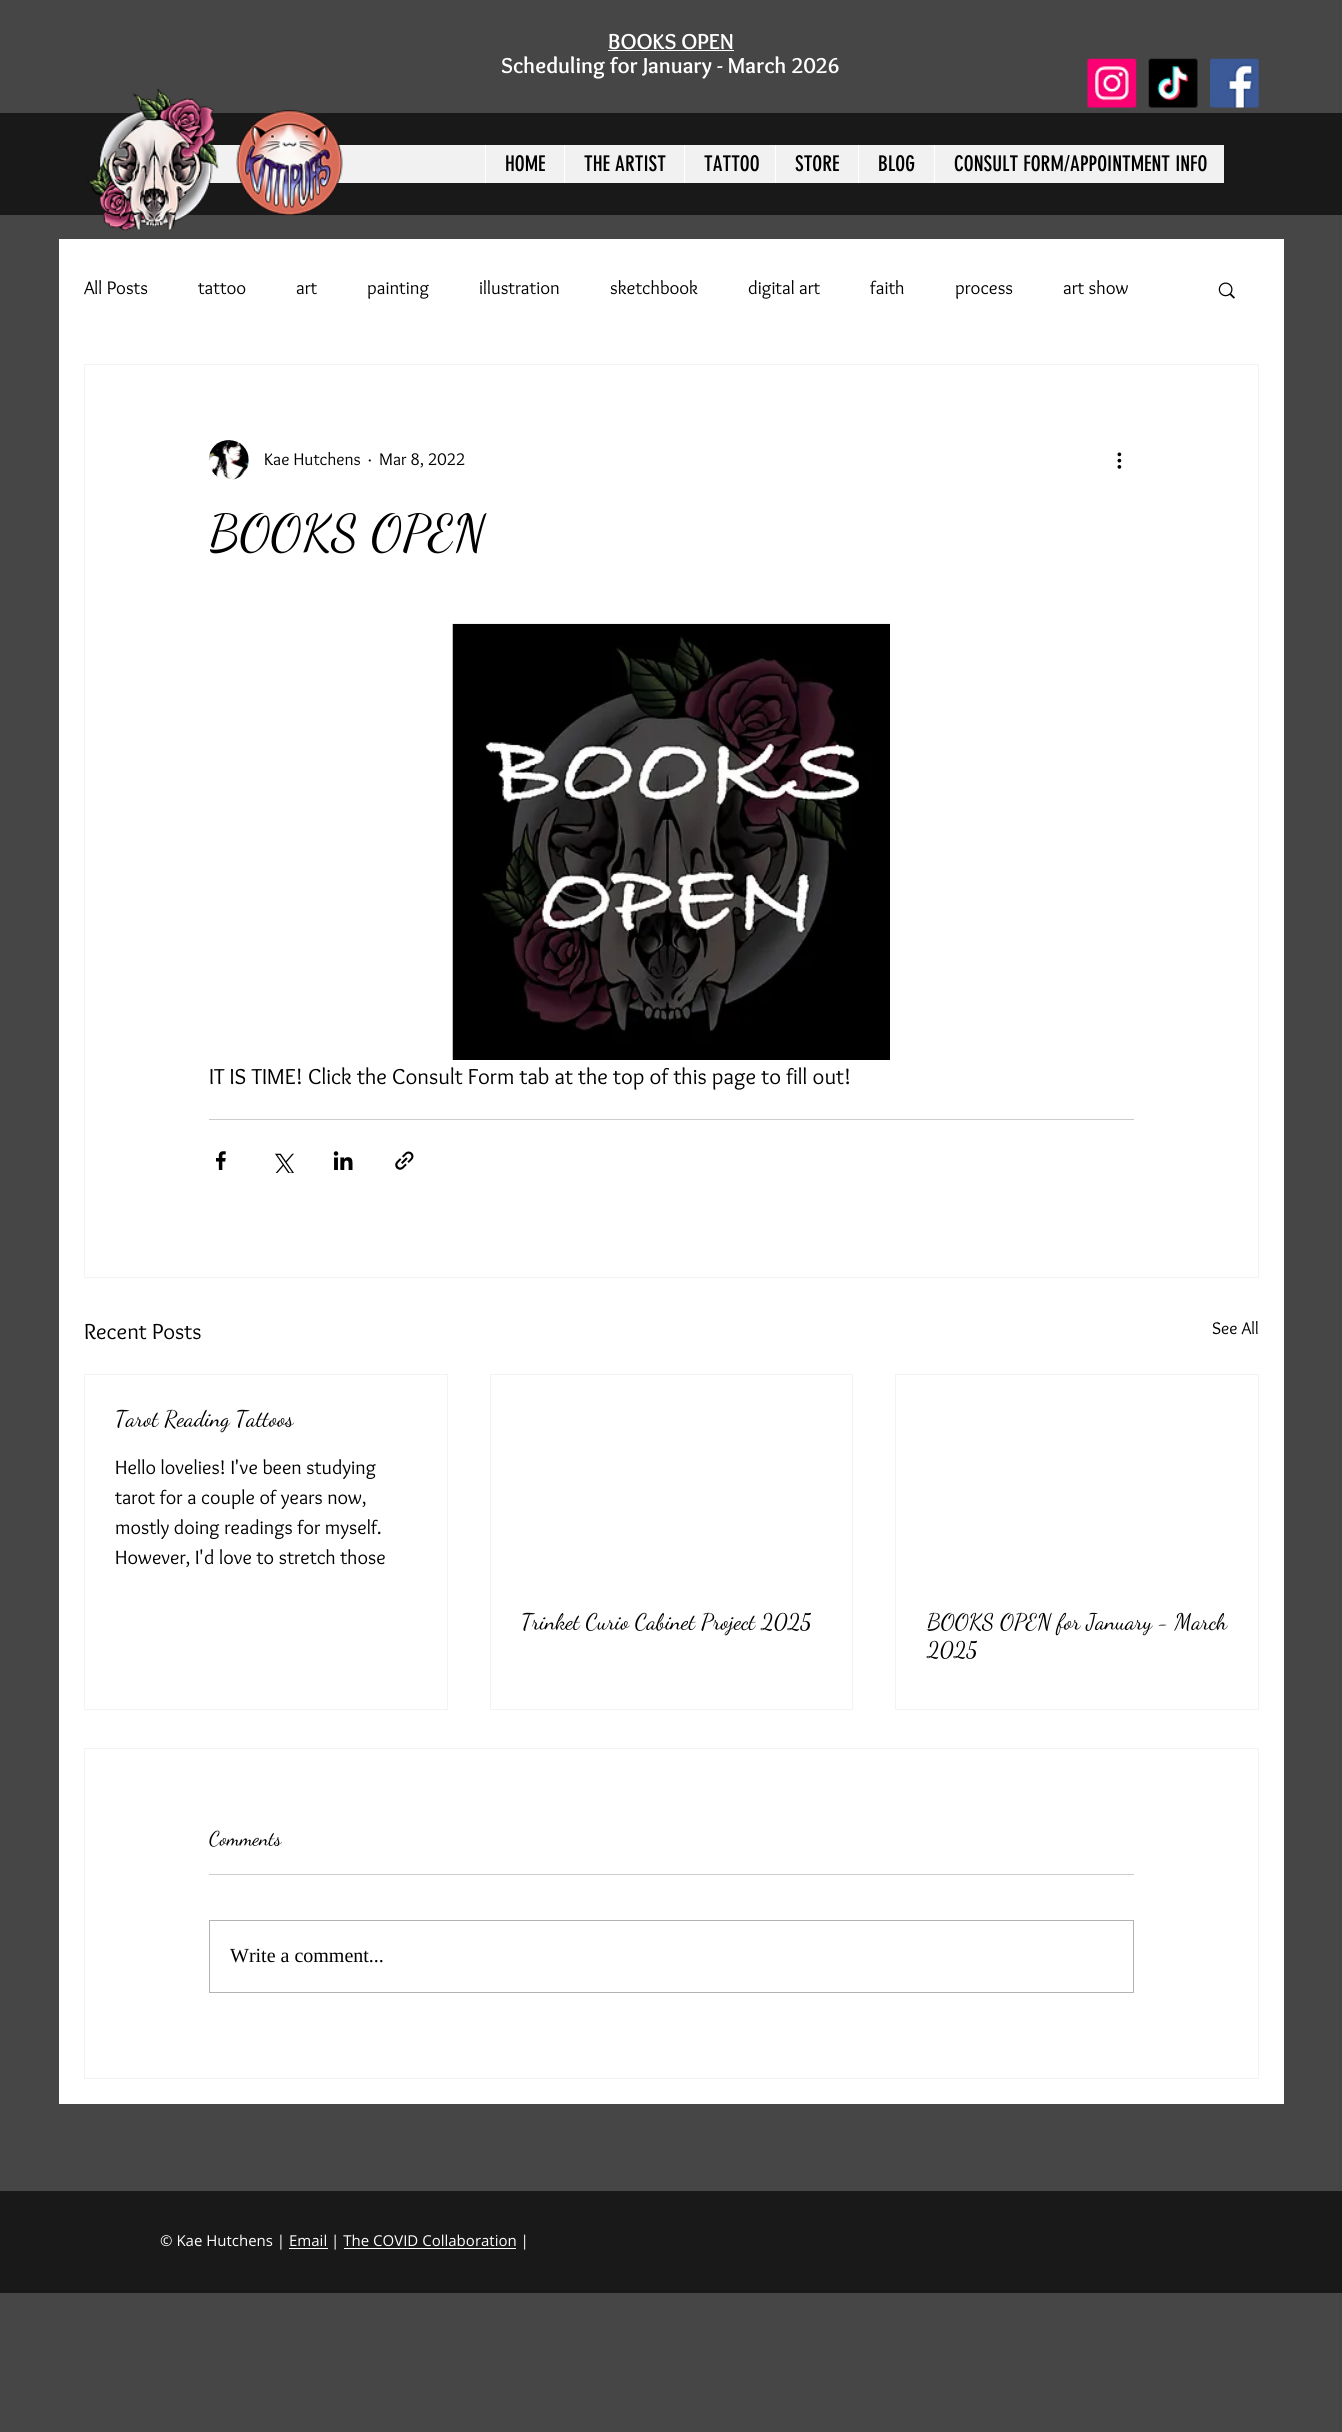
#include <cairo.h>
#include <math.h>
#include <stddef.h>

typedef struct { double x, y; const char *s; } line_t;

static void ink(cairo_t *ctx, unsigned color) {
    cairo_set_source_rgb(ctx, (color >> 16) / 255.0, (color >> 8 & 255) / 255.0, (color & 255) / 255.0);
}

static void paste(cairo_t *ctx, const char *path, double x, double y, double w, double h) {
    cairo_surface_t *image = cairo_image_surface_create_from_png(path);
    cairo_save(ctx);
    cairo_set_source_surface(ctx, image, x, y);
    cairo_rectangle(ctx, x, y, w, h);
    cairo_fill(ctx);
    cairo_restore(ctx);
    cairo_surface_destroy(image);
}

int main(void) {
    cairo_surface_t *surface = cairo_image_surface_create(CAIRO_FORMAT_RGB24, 1342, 2432);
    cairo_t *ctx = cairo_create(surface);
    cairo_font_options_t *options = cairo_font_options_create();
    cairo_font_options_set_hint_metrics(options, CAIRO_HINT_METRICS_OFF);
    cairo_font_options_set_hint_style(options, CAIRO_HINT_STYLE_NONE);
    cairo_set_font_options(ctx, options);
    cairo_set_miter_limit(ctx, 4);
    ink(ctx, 0x464646);
    cairo_paint(ctx);
    cairo_select_font_face(ctx, "Overlock", CAIRO_FONT_SLANT_NORMAL, CAIRO_FONT_WEIGHT_BOLD);
    cairo_set_font_size(ctx, 22.5);
    ink(ctx, 0xFFFFFF);
    cairo_move_to(ctx, 608, 49);
    cairo_show_text(ctx, "BOOKS OPEN");
    cairo_rectangle(ctx, 608, 50, 126, 1);
    cairo_fill(ctx);
    cairo_move_to(ctx, 501, 73);
    cairo_show_text(ctx, "Scheduling for January - March 2026");
    paste(ctx, "media/1.png", 1087, 58, 50, 50);
    paste(ctx, "media/2.png", 1148, 58, 50, 50);
    paste(ctx, "media/3.png", 1210, 58, 49, 50);
    ink(ctx, 0x191919);
    cairo_rectangle(ctx, 0, 113, 1342, 102);
    cairo_fill(ctx);
    ink(ctx, 0xF1F1F1);
    cairo_rectangle(ctx, 119, 145, 1105, 38);
    cairo_fill(ctx);
    paste(ctx, "media/4.png", 87, 88, 132, 143);
    paste(ctx, "media/5.png", 236, 110, 107, 106);
    ink(ctx, 0xFFFFFF);
    cairo_rectangle(ctx, 485, 145, 1, 38);
    cairo_fill(ctx);
    cairo_select_font_face(ctx, "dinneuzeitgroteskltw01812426", CAIRO_FONT_SLANT_NORMAL, CAIRO_FONT_WEIGHT_NORMAL);
    cairo_set_font_size(ctx, 21.25);
    ink(ctx, 0x000000);
    cairo_move_to(ctx, 505, 171);
    cairo_show_text(ctx, "HOME");
    ink(ctx, 0xFFFFFF);
    cairo_rectangle(ctx, 564, 145, 1, 38);
    cairo_fill(ctx);
    ink(ctx, 0x000000);
    cairo_move_to(ctx, 584, 171);
    cairo_show_text(ctx, "THE ARTIST");
    ink(ctx, 0xFFFFFF);
    cairo_rectangle(ctx, 684, 145, 1, 38);
    cairo_fill(ctx);
    ink(ctx, 0x000000);
    cairo_move_to(ctx, 704, 171);
    cairo_show_text(ctx, "TATTOO");
    ink(ctx, 0xFFFFFF);
    cairo_rectangle(ctx, 775, 145, 1, 38);
    cairo_fill(ctx);
    ink(ctx, 0x000000);
    cairo_move_to(ctx, 795, 171);
    cairo_show_text(ctx, "STORE");
    ink(ctx, 0xFFFFFF);
    cairo_rectangle(ctx, 858, 145, 1, 38);
    cairo_fill(ctx);
    ink(ctx, 0x000000);
    cairo_move_to(ctx, 878, 171);
    cairo_show_text(ctx, "BLOG");
    ink(ctx, 0xFFFFFF);
    cairo_rectangle(ctx, 934, 145, 1, 38);
    cairo_fill(ctx);
    ink(ctx, 0x000000);
    cairo_move_to(ctx, 954, 171);
    cairo_show_text(ctx, "CONSULT FORM/APPOINTMENT INFO");
    ink(ctx, 0xFFFFFF);
    cairo_rectangle(ctx, 59, 239, 1225, 1865);
    cairo_fill(ctx);
    cairo_select_font_face(ctx, "Overlock", CAIRO_FONT_SLANT_NORMAL, CAIRO_FONT_WEIGHT_NORMAL);
    cairo_set_font_size(ctx, 18.75);
    ink(ctx, 0x000000);
    {
        static const line_t items[] = {
            {84, 294, "All Posts"},
            {198, 294, "tattoo"},
            {296, 294, "art"},
            {367, 294, "painting"},
            {479, 294, "illustration"},
            {610, 294, "sketchbook"},
            {748, 294, "digital art"},
            {870, 294, "faith"},
            {955, 294, "process"},
            {1063, 294, "art show"},
        };
        for (size_t i = 0; i < sizeof items / sizeof *items; i++) {
            cairo_move_to(ctx, items[i].x, items[i].y);
            cairo_show_text(ctx, items[i].s);
        }
    }
    paste(ctx, "media/6.png", 1218, 282, 17, 17);
    cairo_rectangle(ctx, 84.5, 364.5, 1174, 913);
    ink(ctx, 0xF3F3F3);
    cairo_set_line_width(ctx, 1);
    cairo_stroke(ctx);
    paste(ctx, "media/7.png", 208, 440, 41, 40);
    cairo_set_font_size(ctx, 17.5);
    ink(ctx, 0x000000);
    {
        static const line_t items[] = {
            {264, 465, "Kae Hutchens"},
            {368, 465, "·"},
            {379, 465, "Mar 8, 2022"},
        };
        for (size_t i = 0; i < sizeof items / sizeof *items; i++) {
            cairo_move_to(ctx, items[i].x, items[i].y);
            cairo_show_text(ctx, items[i].s);
        }
    }
    paste(ctx, "media/8.png", 1117, 452, 5, 17);
    cairo_select_font_face(ctx, "Dancing Script", CAIRO_FONT_SLANT_NORMAL, CAIRO_FONT_WEIGHT_NORMAL);
    cairo_set_font_size(ctx, 50);
    cairo_move_to(ctx, 209, 549);
    cairo_show_text(ctx, "BOOKS OPEN");
    paste(ctx, "media/9.png", 452, 623, 438, 437);
    cairo_select_font_face(ctx, "Overlock", CAIRO_FONT_SLANT_NORMAL, CAIRO_FONT_WEIGHT_NORMAL);
    cairo_set_font_size(ctx, 22.5);
    cairo_move_to(ctx, 209, 1084);
    cairo_show_text(ctx, "IT IS TIME! Click the Consult Form tab at the top of this page to fill out!");
    ink(ctx, 0xCCCCCC);
    cairo_rectangle(ctx, 209, 1119, 925, 1);
    cairo_fill(ctx);
    paste(ctx, "media/10.png", 216, 1151, 10, 19);
    paste(ctx, "media/11.png", 275, 1153, 19, 20);
    paste(ctx, "media/12.png", 333, 1151, 20, 19);
    paste(ctx, "media/13.png", 395, 1151, 19, 19);
    ink(ctx, 0x000000);
    cairo_move_to(ctx, 84, 1339);
    cairo_show_text(ctx, "Recent Posts");
    cairo_set_font_size(ctx, 17.5);
    cairo_move_to(ctx, 1212, 1334);
    cairo_show_text(ctx, "See All");
    cairo_rectangle(ctx, 84.5, 1374.5, 363, 335);
    ink(ctx, 0xF3F3F3);
    cairo_stroke(ctx);
    cairo_select_font_face(ctx, "Dancing Script", CAIRO_FONT_SLANT_NORMAL, CAIRO_FONT_WEIGHT_NORMAL);
    cairo_set_font_size(ctx, 22.5);
    ink(ctx, 0x000000);
    cairo_move_to(ctx, 115, 1426);
    cairo_show_text(ctx, "Tarot Reading Tattoos");
    cairo_select_font_face(ctx, "Overlock", CAIRO_FONT_SLANT_NORMAL, CAIRO_FONT_WEIGHT_NORMAL);
    cairo_set_font_size(ctx, 20);
    {
        static const line_t items[] = {
            {115, 1474, "Hello lovelies! I've been studying"},
            {115, 1504, "tarot for a couple of years now,"},
            {115, 1534, "mostly doing readings for myself."},
            {115, 1564, "However, I'd love to stretch those"},
        };
        for (size_t i = 0; i < sizeof items / sizeof *items; i++) {
            cairo_move_to(ctx, items[i].x, items[i].y);
            cairo_show_text(ctx, items[i].s);
        }
    }
    cairo_rectangle(ctx, 490.5, 1374.5, 362, 335);
    ink(ctx, 0xF3F3F3);
    cairo_stroke(ctx);
    cairo_select_font_face(ctx, "Dancing Script", CAIRO_FONT_SLANT_NORMAL, CAIRO_FONT_WEIGHT_NORMAL);
    cairo_set_font_size(ctx, 22.5);
    ink(ctx, 0x000000);
    cairo_move_to(ctx, 521, 1629);
    cairo_show_text(ctx, "Trinket Curio Cabinet Project 2025");
    cairo_rectangle(ctx, 895.5, 1374.5, 363, 335);
    ink(ctx, 0xF3F3F3);
    cairo_stroke(ctx);
    ink(ctx, 0x000000);
    cairo_move_to(ctx, 927, 1629);
    cairo_show_text(ctx, "BOOKS OPEN for January - March");
    cairo_move_to(ctx, 927, 1657);
    cairo_show_text(ctx, "2025");
    cairo_rectangle(ctx, 84.5, 1748.5, 1174, 330);
    ink(ctx, 0xF3F3F3);
    cairo_stroke(ctx);
    cairo_set_font_size(ctx, 20);
    ink(ctx, 0x000000);
    cairo_move_to(ctx, 209, 1845);
    cairo_show_text(ctx, "Comments");
    ink(ctx, 0xCCCCCC);
    cairo_rectangle(ctx, 209, 1874, 925, 1);
    cairo_fill(ctx);
    cairo_rectangle(ctx, 209.5, 1920.5, 924, 72);
    ink(ctx, 0xB3B3B3);
    cairo_stroke(ctx);
    cairo_select_font_face(ctx, "Liberation Serif", CAIRO_FONT_SLANT_NORMAL, CAIRO_FONT_WEIGHT_NORMAL);
    ink(ctx, 0x000000);
    cairo_move_to(ctx, 230, 1962);
    cairo_show_text(ctx, "Write a comment...");
    ink(ctx, 0x191919);
    cairo_rectangle(ctx, 0, 2191, 1342, 102);
    cairo_fill(ctx);
    cairo_select_font_face(ctx, "Open Sans", CAIRO_FONT_SLANT_NORMAL, CAIRO_FONT_WEIGHT_NORMAL);
    cairo_set_font_size(ctx, 15);
    ink(ctx, 0xFFFFFF);
    cairo_move_to(ctx, 160, 2246);
    cairo_show_text(ctx, "© Kae Hutchens | Email | The COVID Collaboration |");
    cairo_rectangle(ctx, 289, 2248, 39, 1);
    cairo_fill(ctx);
    cairo_rectangle(ctx, 344, 2248, 172, 1);
    cairo_fill(ctx);
    cairo_surface_write_to_png(surface, "image.png");
    cairo_font_options_destroy(options);
    cairo_destroy(ctx);
    cairo_surface_destroy(surface);
    return 0;
}
